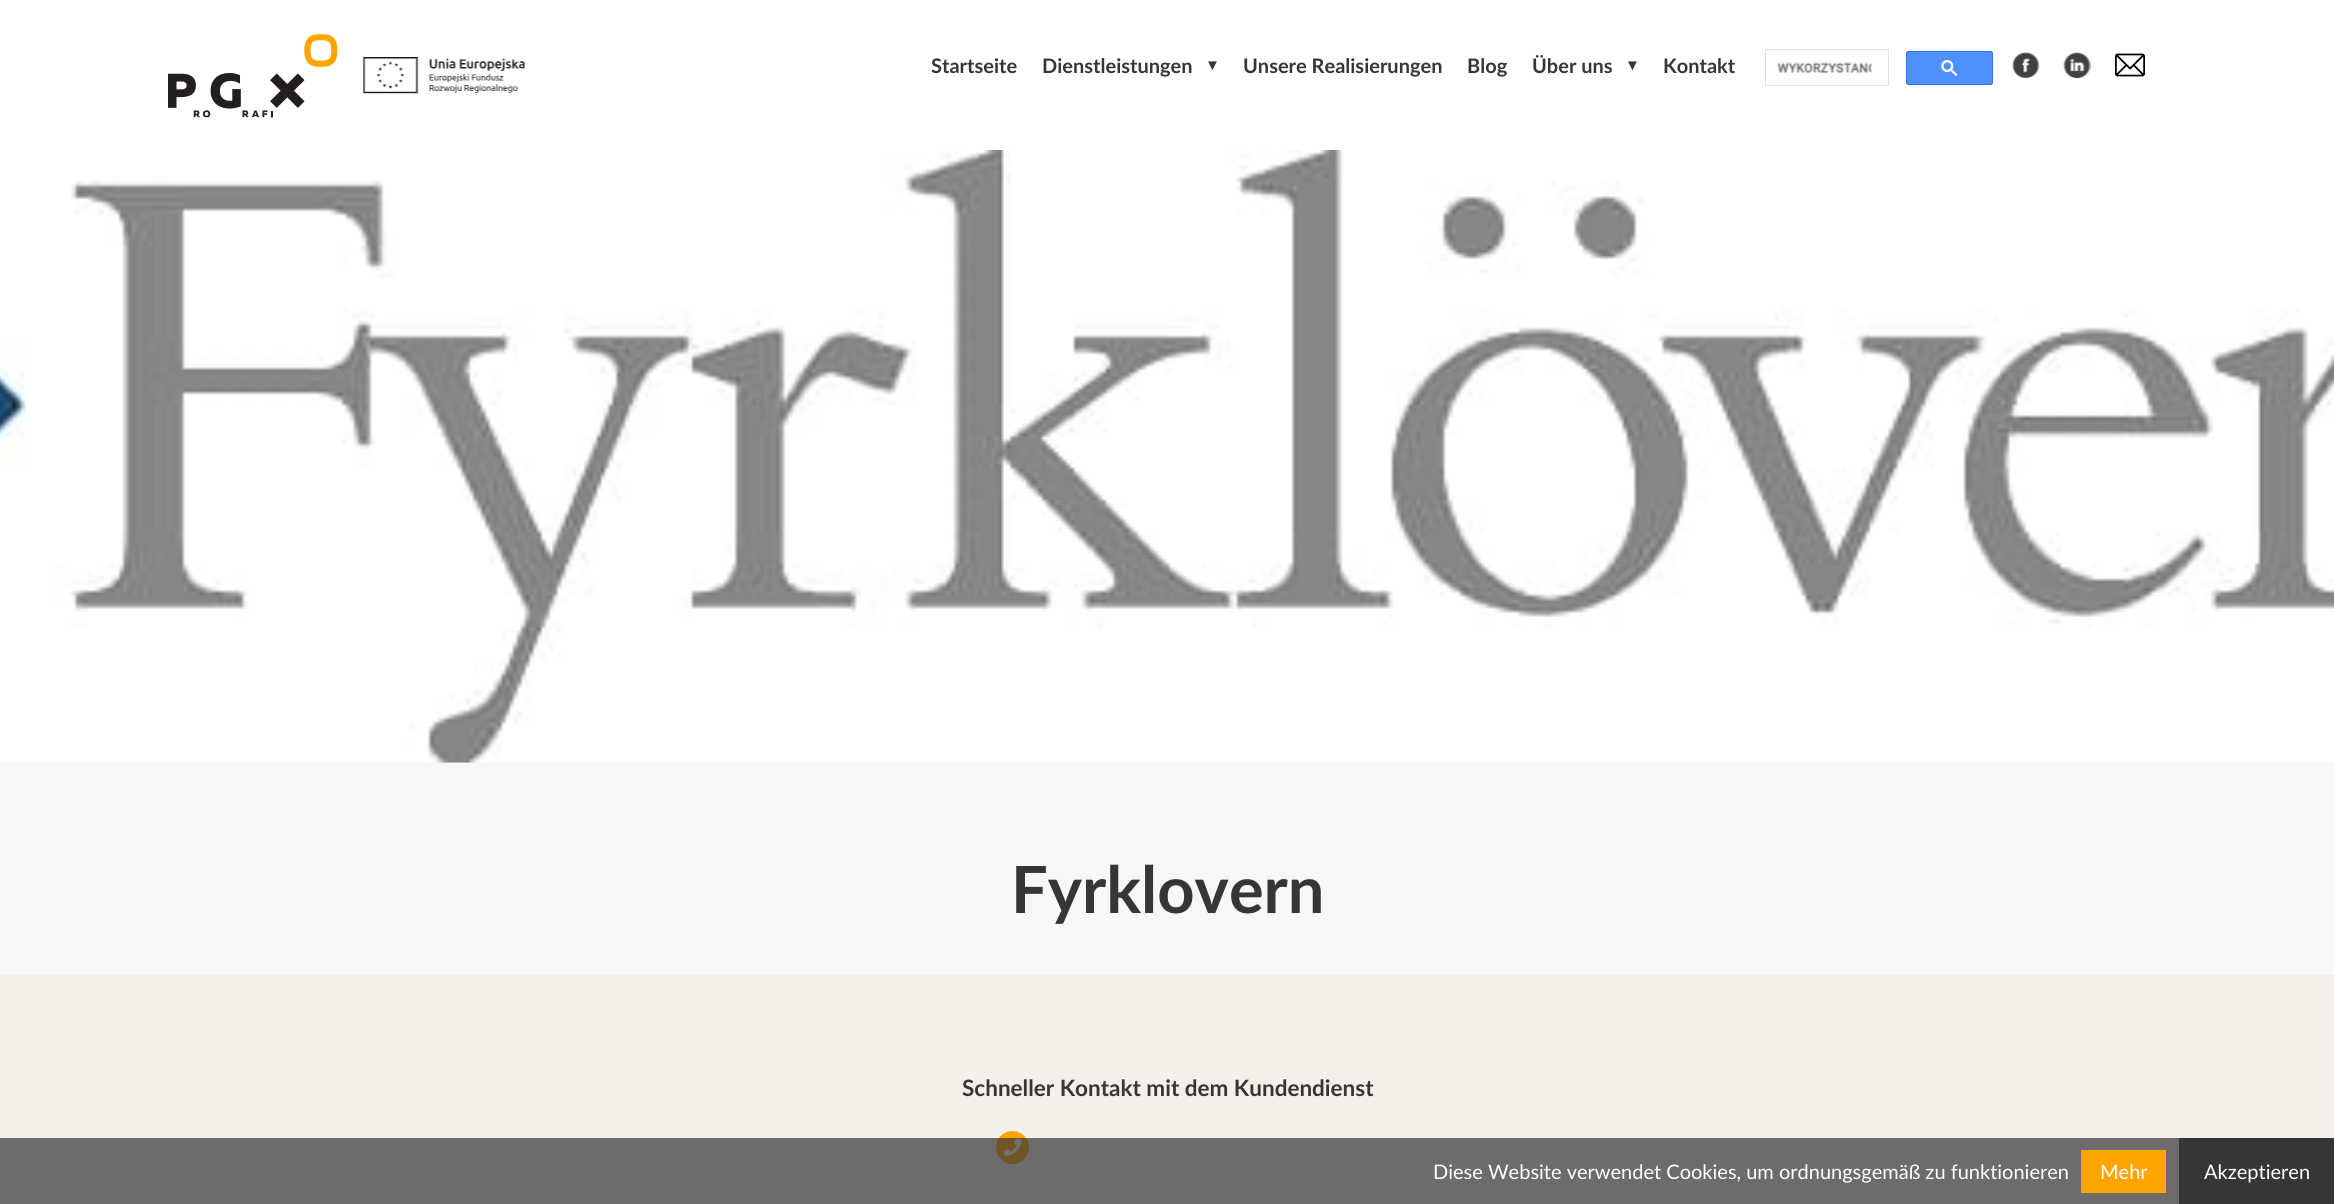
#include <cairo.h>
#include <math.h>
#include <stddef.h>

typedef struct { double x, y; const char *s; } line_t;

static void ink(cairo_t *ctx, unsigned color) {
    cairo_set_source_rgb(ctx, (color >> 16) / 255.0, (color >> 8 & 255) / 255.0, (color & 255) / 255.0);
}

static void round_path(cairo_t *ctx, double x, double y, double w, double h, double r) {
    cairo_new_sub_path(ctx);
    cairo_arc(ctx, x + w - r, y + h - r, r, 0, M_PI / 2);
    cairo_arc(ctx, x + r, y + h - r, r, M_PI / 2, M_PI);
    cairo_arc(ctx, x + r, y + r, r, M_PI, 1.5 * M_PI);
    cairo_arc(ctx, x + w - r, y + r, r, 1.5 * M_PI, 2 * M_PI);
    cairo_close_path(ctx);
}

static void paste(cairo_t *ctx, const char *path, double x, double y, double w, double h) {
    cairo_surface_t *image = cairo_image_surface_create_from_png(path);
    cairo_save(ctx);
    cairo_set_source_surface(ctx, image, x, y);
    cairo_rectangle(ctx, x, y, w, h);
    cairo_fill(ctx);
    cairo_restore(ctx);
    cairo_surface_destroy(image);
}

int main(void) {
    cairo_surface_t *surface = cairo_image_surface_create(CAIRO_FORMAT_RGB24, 2334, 1204);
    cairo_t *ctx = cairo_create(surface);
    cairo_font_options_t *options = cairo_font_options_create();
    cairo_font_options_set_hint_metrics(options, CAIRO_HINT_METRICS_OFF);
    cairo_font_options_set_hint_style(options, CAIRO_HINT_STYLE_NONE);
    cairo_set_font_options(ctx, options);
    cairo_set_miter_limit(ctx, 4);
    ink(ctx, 0xF9F7F5);
    cairo_paint(ctx);
    ink(ctx, 0xFFFFFF);
    cairo_rectangle(ctx, 0, 0, 2334, 150);
    cairo_fill(ctx);
    paste(ctx, "media/1.png", 168, 34, 170, 84);
    paste(ctx, "media/2.png", 363, 57, 162, 37);
    cairo_select_font_face(ctx, "Lato", CAIRO_FONT_SLANT_NORMAL, CAIRO_FONT_WEIGHT_BOLD);
    cairo_set_font_size(ctx, 20);
    ink(ctx, 0x363636);
    cairo_move_to(ctx, 931, 73);
    cairo_show_text(ctx, "Startseite");
    cairo_move_to(ctx, 1042, 73);
    cairo_show_text(ctx, "Dienstleistungen");
    cairo_select_font_face(ctx, "Liberation Sans", CAIRO_FONT_SLANT_NORMAL, CAIRO_FONT_WEIGHT_NORMAL);
    cairo_set_font_size(ctx, 15);
    cairo_move_to(ctx, 1205, 70);
    cairo_show_text(ctx, "▼");
    cairo_select_font_face(ctx, "Lato", CAIRO_FONT_SLANT_NORMAL, CAIRO_FONT_WEIGHT_BOLD);
    cairo_set_font_size(ctx, 20);
    {
        static const line_t items[] = {
            {1243, 73, "Unsere Realisierungen"},
            {1467, 73, "Blog"},
            {1532, 73, "Über uns"},
        };
        for (size_t i = 0; i < sizeof items / sizeof *items; i++) {
            cairo_move_to(ctx, items[i].x, items[i].y);
            cairo_show_text(ctx, items[i].s);
        }
    }
    cairo_select_font_face(ctx, "Liberation Sans", CAIRO_FONT_SLANT_NORMAL, CAIRO_FONT_WEIGHT_NORMAL);
    cairo_set_font_size(ctx, 15);
    cairo_move_to(ctx, 1625, 70);
    cairo_show_text(ctx, "▼");
    cairo_select_font_face(ctx, "Lato", CAIRO_FONT_SLANT_NORMAL, CAIRO_FONT_WEIGHT_BOLD);
    cairo_set_font_size(ctx, 20);
    cairo_move_to(ctx, 1663, 73);
    cairo_show_text(ctx, "Kontakt");
    cairo_rectangle(ctx, 1765.5, 49.5, 123, 36);
    ink(ctx, 0xDFE1E5);
    cairo_set_line_width(ctx, 1);
    cairo_stroke(ctx);
    paste(ctx, "media/3.png", 1777, 62, 95, 11);
    ink(ctx, 0x4D90FE);
    round_path(ctx, 1906.5, 51.5, 86, 33, 2);
    cairo_fill_preserve(ctx);
    ink(ctx, 0x3079ED);
    cairo_stroke(ctx);
    paste(ctx, "media/4.png", 1941, 60, 17, 16);
    paste(ctx, "media/5.png", 2012, 52, 28, 27);
    paste(ctx, "media/6.png", 2063, 52, 28, 27);
    paste(ctx, "media/7.png", 2115, 53, 30, 24);
    ink(ctx, 0xF5EFEA);
    cairo_rectangle(ctx, 0, 762, 2334, 1);
    cairo_fill(ctx);
    paste(ctx, "media/8.png", 0, 150, 2334, 613);
    cairo_set_font_size(ctx, 65);
    ink(ctx, 0x363636);
    cairo_move_to(ctx, 1011, 913);
    cairo_show_text(ctx, "Fyrklovern");
    ink(ctx, 0xF5EFEA);
    cairo_rectangle(ctx, 0, 975, 2334, 229);
    cairo_fill(ctx);
    cairo_set_font_size(ctx, 22.5);
    ink(ctx, 0x363636);
    cairo_move_to(ctx, 962, 1096);
    cairo_show_text(ctx, "Schneller Kontakt mit dem Kundendienst");
    ink(ctx, 0xFFA500);
    cairo_new_path(ctx);
    cairo_arc(ctx, 1012.5, 1147.5, 16.5, 0, 2 * M_PI);
    cairo_fill(ctx);
    paste(ctx, "media/9.png", 1003, 1138, 19, 18);
    cairo_set_source_rgba(ctx, 0.212, 0.212, 0.212, 0.7);
    cairo_rectangle(ctx, 0, 1138, 2179, 66);
    cairo_fill(ctx);
    cairo_select_font_face(ctx, "Lato", CAIRO_FONT_SLANT_NORMAL, CAIRO_FONT_WEIGHT_NORMAL);
    cairo_set_font_size(ctx, 20);
    ink(ctx, 0xFFFFFF);
    cairo_move_to(ctx, 1433, 1179);
    cairo_show_text(ctx, "Diese Website verwendet Cookies, um ordnungsgemäß zu funktionieren");
    ink(ctx, 0xFFA500);
    cairo_rectangle(ctx, 2081, 1150, 85, 43);
    cairo_fill(ctx);
    ink(ctx, 0xFFFFFF);
    cairo_move_to(ctx, 2100, 1179);
    cairo_show_text(ctx, "Mehr");
    ink(ctx, 0x363636);
    cairo_rectangle(ctx, 2179, 1138, 155, 66);
    cairo_fill(ctx);
    ink(ctx, 0xFFFFFF);
    cairo_move_to(ctx, 2204, 1179);
    cairo_show_text(ctx, "Akzeptieren");
    cairo_surface_write_to_png(surface, "image.png");
    cairo_font_options_destroy(options);
    cairo_destroy(ctx);
    cairo_surface_destroy(surface);
    return 0;
}
